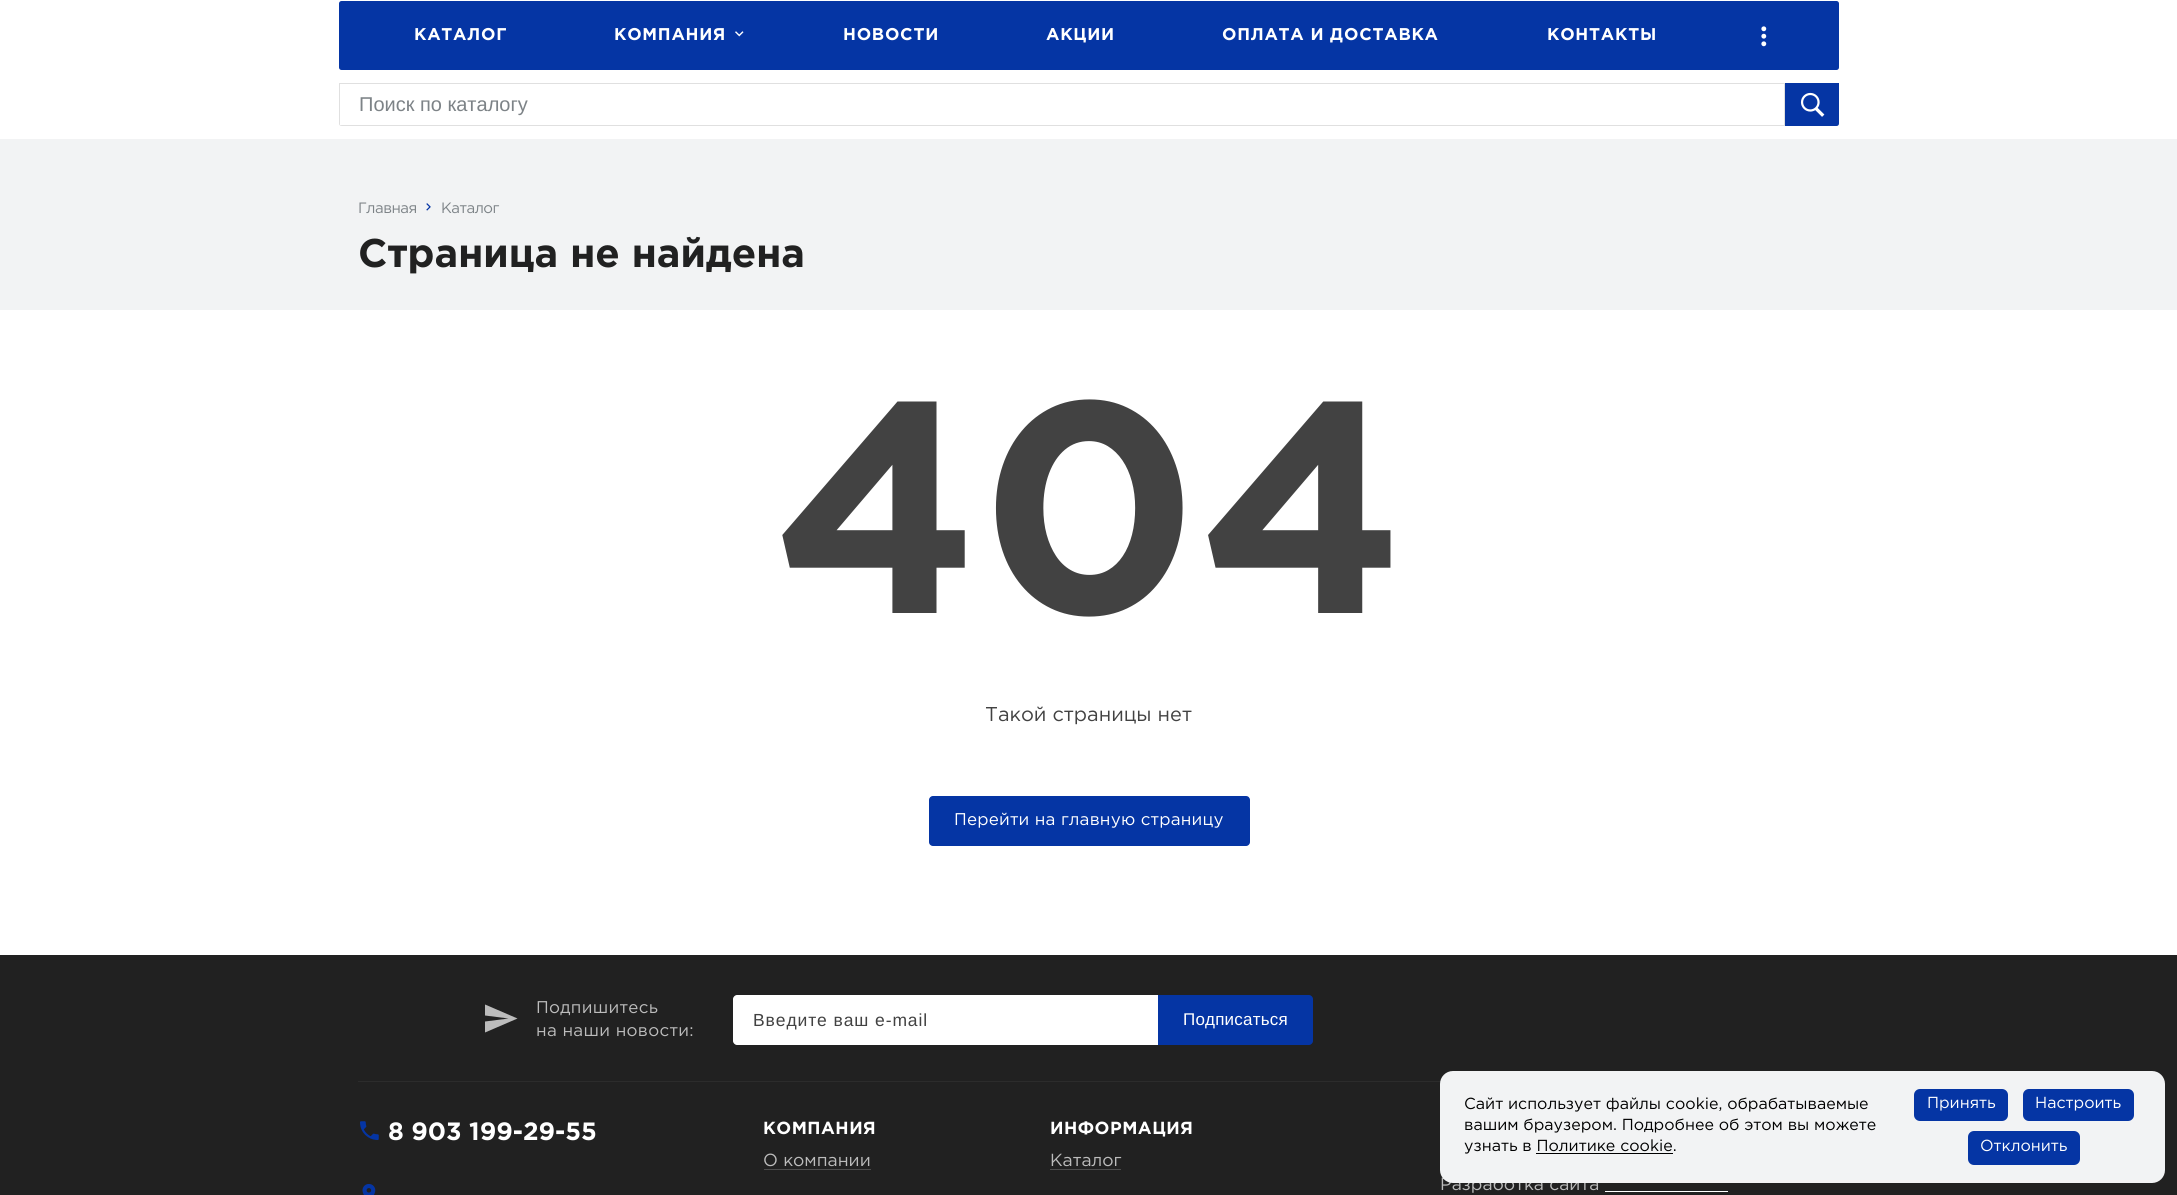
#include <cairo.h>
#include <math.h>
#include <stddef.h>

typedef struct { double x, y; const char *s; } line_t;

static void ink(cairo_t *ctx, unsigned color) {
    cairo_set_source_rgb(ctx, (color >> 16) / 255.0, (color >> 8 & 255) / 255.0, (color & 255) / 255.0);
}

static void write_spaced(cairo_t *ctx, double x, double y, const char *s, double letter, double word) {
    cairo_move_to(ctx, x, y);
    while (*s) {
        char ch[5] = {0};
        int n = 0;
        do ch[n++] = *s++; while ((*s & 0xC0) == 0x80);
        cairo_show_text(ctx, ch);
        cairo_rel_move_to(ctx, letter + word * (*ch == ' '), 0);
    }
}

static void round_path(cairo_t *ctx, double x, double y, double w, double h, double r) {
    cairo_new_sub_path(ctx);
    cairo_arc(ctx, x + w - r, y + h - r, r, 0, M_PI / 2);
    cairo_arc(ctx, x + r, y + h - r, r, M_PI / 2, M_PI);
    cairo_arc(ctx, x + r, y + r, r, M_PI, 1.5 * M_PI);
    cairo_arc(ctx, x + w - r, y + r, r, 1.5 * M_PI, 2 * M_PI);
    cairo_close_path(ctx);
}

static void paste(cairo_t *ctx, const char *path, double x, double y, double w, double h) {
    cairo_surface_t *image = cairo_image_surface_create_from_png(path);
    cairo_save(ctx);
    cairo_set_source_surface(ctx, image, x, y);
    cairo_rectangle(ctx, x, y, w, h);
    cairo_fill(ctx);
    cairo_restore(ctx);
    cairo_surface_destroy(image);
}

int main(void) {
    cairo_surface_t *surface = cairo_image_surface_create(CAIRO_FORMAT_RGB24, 2177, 1195);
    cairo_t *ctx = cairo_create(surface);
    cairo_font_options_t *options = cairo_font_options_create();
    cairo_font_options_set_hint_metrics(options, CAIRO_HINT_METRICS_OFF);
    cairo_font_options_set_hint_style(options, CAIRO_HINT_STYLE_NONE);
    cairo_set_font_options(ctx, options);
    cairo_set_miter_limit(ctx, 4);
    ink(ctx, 0xFFFFFF);
    cairo_paint(ctx);
    ink(ctx, 0x0535A4);
    round_path(ctx, 339, 1, 1500, 69, 2.5);
    cairo_fill(ctx);
    cairo_select_font_face(ctx, "Gotham", CAIRO_FONT_SLANT_NORMAL, CAIRO_FONT_WEIGHT_BOLD);
    cairo_set_font_size(ctx, 17);
    ink(ctx, 0xFFFFFF);
    write_spaced(ctx, 414, 40, "КАТАЛОГ", 0.75, 0);
    write_spaced(ctx, 614, 40, "КОМПАНИЯ", 0.75, 0);
    paste(ctx, "media/1.png", 735, 31, 9, 6);
    {
        static const line_t items[] = {
            {843, 40, "НОВОСТИ"},
            {1046, 40, "АКЦИИ"},
            {1222, 40, "ОПЛАТА И ДОСТАВКА"},
            {1547, 40, "КОНТАКТЫ"},
        };
        for (size_t i = 0; i < sizeof items / sizeof *items; i++) {
            write_spaced(ctx, items[i].x, items[i].y, items[i].s, 0.75, 0);
        }
    }
    paste(ctx, "media/2.png", 1761, 26, 6, 21);
    ink(ctx, 0xE0E0E0);
    cairo_set_fill_rule(ctx, CAIRO_FILL_RULE_EVEN_ODD);
    cairo_new_path(ctx);
    cairo_move_to(ctx, 339, 83);
    cairo_line_to(ctx, 339, 124);
    cairo_curve_to(ctx, 339, 125, 340, 126, 342, 126);
    cairo_line_to(ctx, 1785, 126);
    cairo_line_to(ctx, 1785, 83);
    cairo_close_path(ctx);
    cairo_move_to(ctx, 340, 84);
    cairo_line_to(ctx, 340, 125);
    cairo_line_to(ctx, 1784, 125);
    cairo_line_to(ctx, 1784, 84);
    cairo_close_path(ctx);
    cairo_fill(ctx);
    cairo_select_font_face(ctx, "Liberation Sans", CAIRO_FONT_SLANT_NORMAL, CAIRO_FONT_WEIGHT_NORMAL);
    cairo_set_font_size(ctx, 20);
    ink(ctx, 0x7D8387);
    cairo_move_to(ctx, 359, 111);
    cairo_show_text(ctx, "Поиск по каталогу");
    ink(ctx, 0x0535A4);
    cairo_new_path(ctx);
    cairo_move_to(ctx, 1785, 83);
    cairo_line_to(ctx, 1839, 83);
    cairo_line_to(ctx, 1839, 123.5);
    cairo_curve_to(ctx, 1839, 125, 1838, 126, 1836.5, 126);
    cairo_line_to(ctx, 1785, 126);
    cairo_close_path(ctx);
    cairo_fill(ctx);
    paste(ctx, "media/3.png", 1800, 92, 25, 25);
    ink(ctx, 0xF2F3F4);
    cairo_rectangle(ctx, 0, 139, 2177, 171);
    cairo_fill(ctx);
    cairo_select_font_face(ctx, "Gotham", CAIRO_FONT_SLANT_NORMAL, CAIRO_FONT_WEIGHT_NORMAL);
    cairo_set_font_size(ctx, 15);
    ink(ctx, 0x7D8387);
    write_spaced(ctx, 358, 213, "Главная", -0.5, 0);
    paste(ctx, "media/4.png", 426, 203, 5, 8);
    write_spaced(ctx, 441, 213, "Каталог", -0.5, 0);
    cairo_select_font_face(ctx, "Gotham", CAIRO_FONT_SLANT_NORMAL, CAIRO_FONT_WEIGHT_BOLD);
    cairo_set_font_size(ctx, 40);
    ink(ctx, 0x212121);
    cairo_move_to(ctx, 358, 267);
    cairo_show_text(ctx, "Страница не найдена");
    cairo_set_font_size(ctx, 300);
    ink(ctx, 0x424242);
    cairo_move_to(ctx, 773, 613);
    cairo_show_text(ctx, "404");
    cairo_select_font_face(ctx, "Gotham", CAIRO_FONT_SLANT_NORMAL, CAIRO_FONT_WEIGHT_NORMAL);
    cairo_set_font_size(ctx, 20);
    cairo_move_to(ctx, 985, 721);
    cairo_show_text(ctx, "Такой страницы нет");
    ink(ctx, 0x0535A4);
    round_path(ctx, 929, 796, 321, 50, 4);
    cairo_fill(ctx);
    cairo_set_font_size(ctx, 17);
    ink(ctx, 0xFFFFFF);
    write_spaced(ctx, 954, 825, "Перейти на главную страницу", 0.2, 0);
    ink(ctx, 0x212121);
    cairo_rectangle(ctx, 0, 955, 2177, 240);
    cairo_fill(ctx);
    ink(ctx, 0x2C2C2C);
    cairo_rectangle(ctx, 358, 1081, 1083, 1);
    cairo_fill(ctx);
    ink(ctx, 0xBCBCBC);
    cairo_set_fill_rule(ctx, CAIRO_FILL_RULE_WINDING);
    cairo_new_path(ctx);
    cairo_move_to(ctx, 485, 1032.5);
    cairo_line_to(ctx, 485, 1021.5);
    cairo_line_to(ctx, 508.5, 1018.5);
    cairo_line_to(ctx, 485, 1015.5);
    cairo_line_to(ctx, 485, 1004.5);
    cairo_line_to(ctx, 517.5, 1018.5);
    cairo_close_path(ctx);
    cairo_fill(ctx);
    write_spaced(ctx, 536, 1013, "Подпишитесь", 0.3, 0);
    write_spaced(ctx, 536, 1036, "на наши новости:", 0.3, 0);
    ink(ctx, 0xFFFFFF);
    cairo_new_path(ctx);
    cairo_move_to(ctx, 737, 995);
    cairo_line_to(ctx, 1158, 995);
    cairo_line_to(ctx, 1158, 1045);
    cairo_line_to(ctx, 737, 1045);
    cairo_curve_to(ctx, 735, 1045, 733, 1043, 733, 1041);
    cairo_line_to(ctx, 733, 999);
    cairo_curve_to(ctx, 733, 997, 735, 995, 737, 995);
    cairo_close_path(ctx);
    cairo_fill(ctx);
    cairo_select_font_face(ctx, "Liberation Sans", CAIRO_FONT_SLANT_NORMAL, CAIRO_FONT_WEIGHT_NORMAL);
    cairo_set_font_size(ctx, 17.5);
    ink(ctx, 0x424242);
    write_spaced(ctx, 753, 1026, "Введите ваш e-mail", 0.9, 0);
    ink(ctx, 0x0535A4);
    cairo_new_path(ctx);
    cairo_move_to(ctx, 1158, 995);
    cairo_line_to(ctx, 1309, 995);
    cairo_curve_to(ctx, 1311, 995, 1313, 997, 1313, 999);
    cairo_line_to(ctx, 1313, 1041);
    cairo_curve_to(ctx, 1313, 1043, 1311, 1045, 1309, 1045);
    cairo_line_to(ctx, 1158, 1045);
    cairo_close_path(ctx);
    cairo_fill(ctx);
    cairo_set_font_size(ctx, 17);
    ink(ctx, 0xFFFFFF);
    write_spaced(ctx, 1183, 1025, "Подписаться", 0.2, 0);
    paste(ctx, "media/5.png", 360, 1121, 19, 19);
    cairo_select_font_face(ctx, "Gotham", CAIRO_FONT_SLANT_NORMAL, CAIRO_FONT_WEIGHT_BOLD);
    cairo_set_font_size(ctx, 25);
    cairo_move_to(ctx, 388, 1140);
    cairo_show_text(ctx, "8 903 199-29-55");
    paste(ctx, "media/6.png", 362, 1184, 14, 11);
    cairo_set_font_size(ctx, 17.5);
    write_spaced(ctx, 763, 1134, "КОМПАНИЯ", 0.5, 0);
    cairo_select_font_face(ctx, "Gotham", CAIRO_FONT_SLANT_NORMAL, CAIRO_FONT_WEIGHT_NORMAL);
    ink(ctx, 0xBCBCBC);
    cairo_move_to(ctx, 763, 1166);
    cairo_show_text(ctx, "О компании");
    ink(ctx, 0x4E4E4E);
    cairo_rectangle(ctx, 764, 1169, 107, 1);
    cairo_fill(ctx);
    cairo_select_font_face(ctx, "Gotham", CAIRO_FONT_SLANT_NORMAL, CAIRO_FONT_WEIGHT_BOLD);
    ink(ctx, 0xFFFFFF);
    write_spaced(ctx, 1050, 1134, "ИНФОРМАЦИЯ", 0.5, 0);
    cairo_select_font_face(ctx, "Gotham", CAIRO_FONT_SLANT_NORMAL, CAIRO_FONT_WEIGHT_NORMAL);
    ink(ctx, 0xBCBCBC);
    cairo_move_to(ctx, 1050, 1166);
    cairo_show_text(ctx, "Каталог");
    ink(ctx, 0x4E4E4E);
    cairo_rectangle(ctx, 1050, 1169, 71, 1);
    cairo_fill(ctx);
    ink(ctx, 0xBCBCBC);
    cairo_move_to(ctx, 1440, 1190);
    cairo_show_text(ctx, "Разработка сайта");
    ink(ctx, 0xFFFFFF);
    cairo_rectangle(ctx, 1605, 1191, 123, 1);
    cairo_fill(ctx);
    ink(ctx, 0xF2F3F4);
    round_path(ctx, 1440, 1071, 725, 112, 13);
    cairo_fill(ctx);
    cairo_set_font_size(ctx, 16);
    ink(ctx, 0x000000);
    {
        static const line_t items[] = {
            {1464, 1109, "Сайт использует файлы cookie, обрабатываемые"},
            {1464, 1130, "вашим браузером. Подробнее об этом вы можете"},
            {1464, 1151, "узнать в Политике cookie."},
        };
        for (size_t i = 0; i < sizeof items / sizeof *items; i++) {
            cairo_move_to(ctx, items[i].x, items[i].y);
            cairo_show_text(ctx, items[i].s);
        }
    }
    cairo_rectangle(ctx, 1536, 1153, 137, 1);
    cairo_fill(ctx);
    ink(ctx, 0x0535A4);
    round_path(ctx, 1914, 1089, 94, 32, 6);
    cairo_fill(ctx);
    ink(ctx, 0xFFFFFF);
    cairo_move_to(ctx, 1927, 1108);
    cairo_show_text(ctx, "Принять");
    ink(ctx, 0x0535A4);
    round_path(ctx, 2023, 1089, 111, 32, 6);
    cairo_fill(ctx);
    ink(ctx, 0xFFFFFF);
    cairo_move_to(ctx, 2035, 1108);
    cairo_show_text(ctx, "Настроить");
    ink(ctx, 0x0535A4);
    round_path(ctx, 1968, 1131, 112, 34, 6);
    cairo_fill(ctx);
    ink(ctx, 0xFFFFFF);
    cairo_move_to(ctx, 1980, 1151);
    cairo_show_text(ctx, "Отклонить");
    cairo_surface_write_to_png(surface, "image.png");
    cairo_font_options_destroy(options);
    cairo_destroy(ctx);
    cairo_surface_destroy(surface);
    return 0;
}
